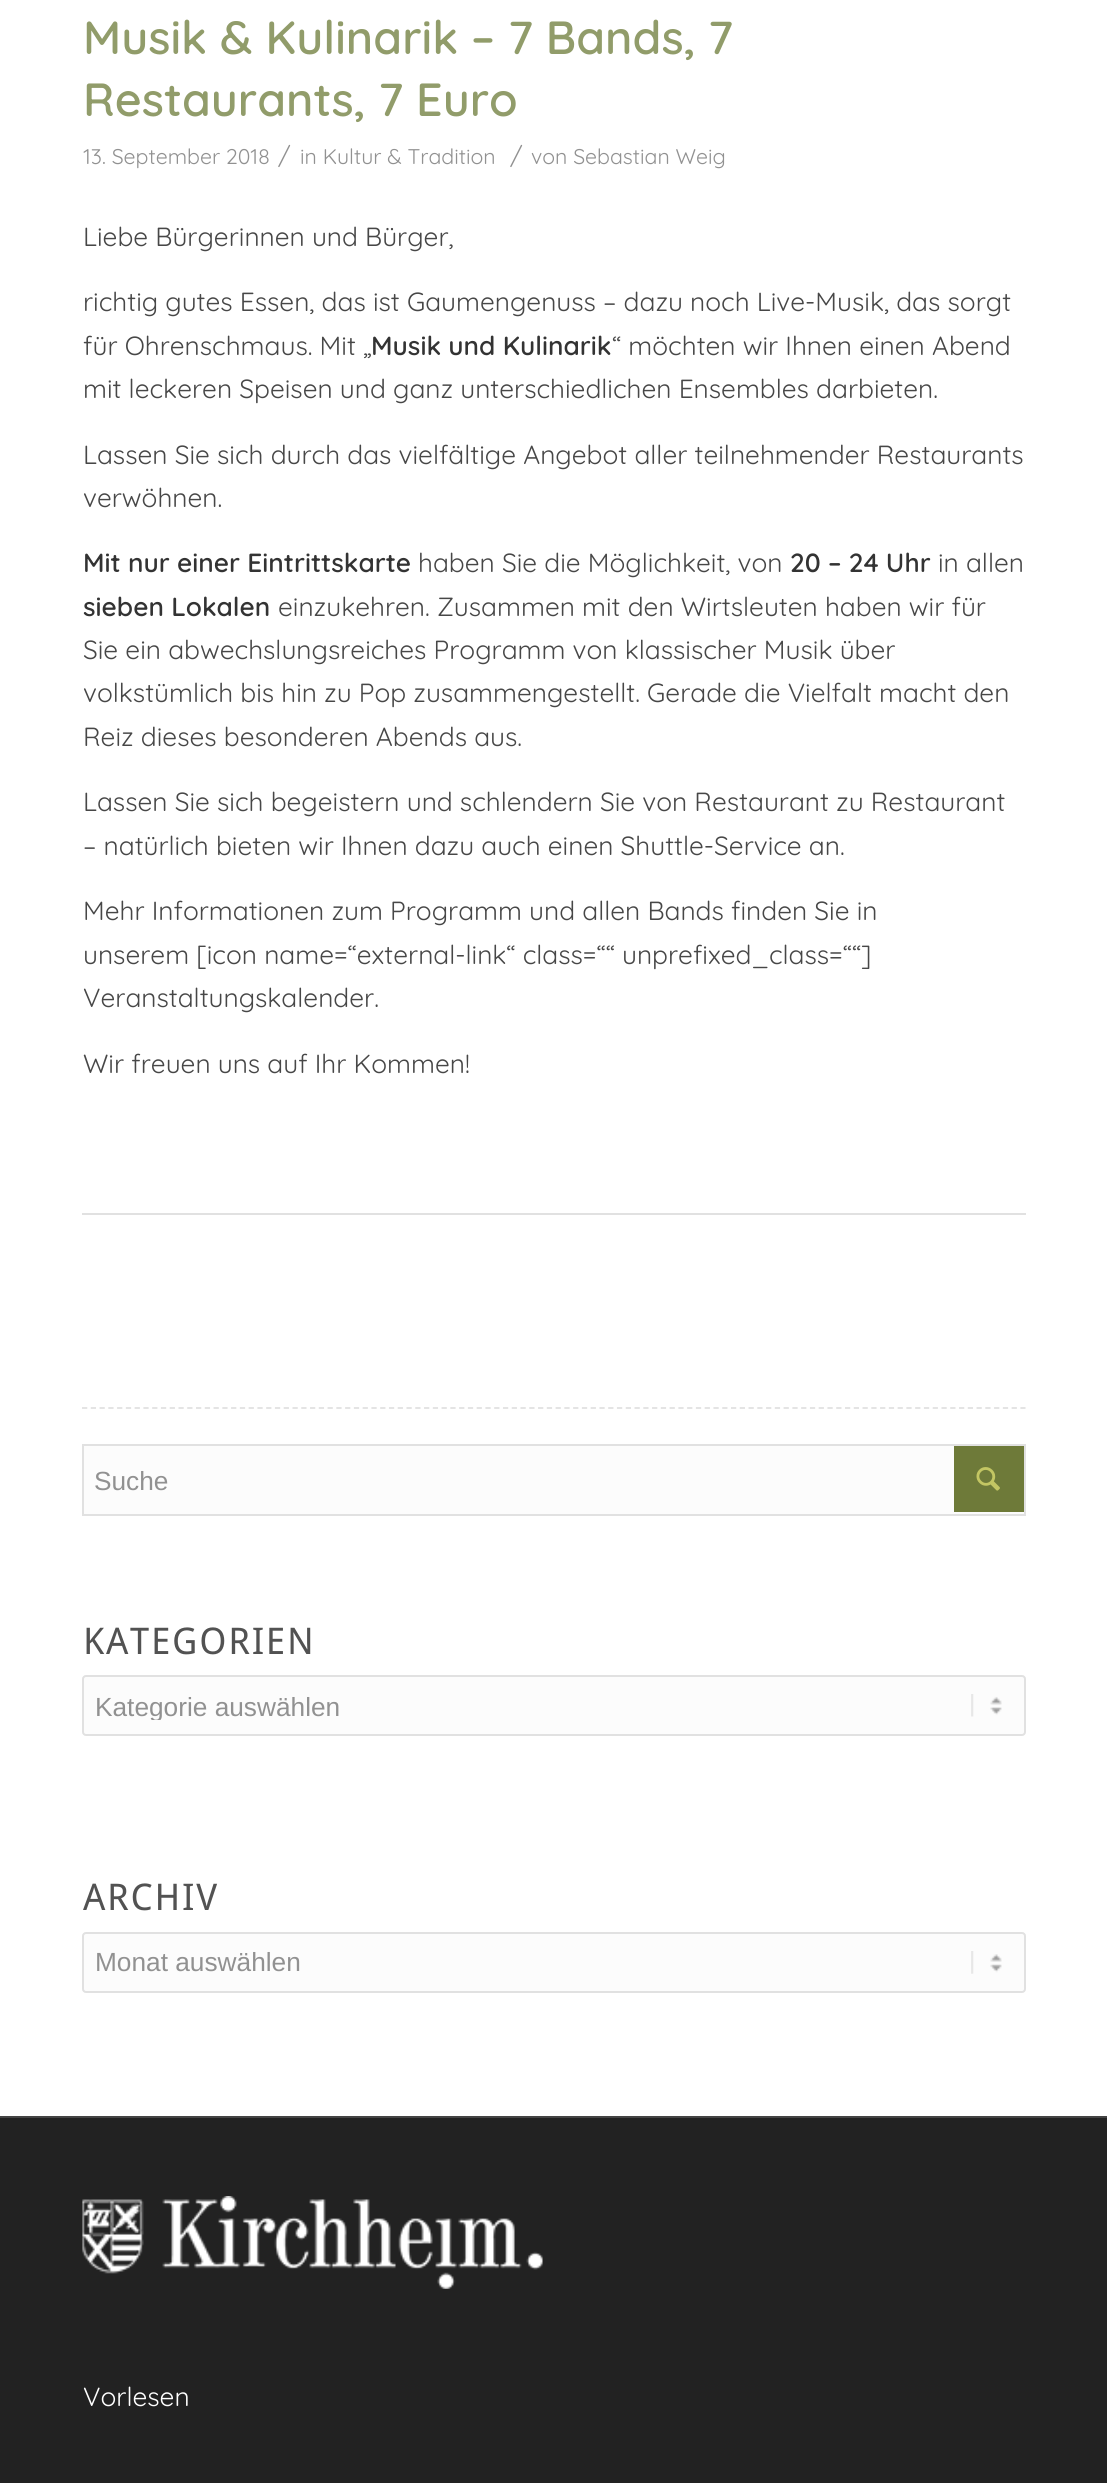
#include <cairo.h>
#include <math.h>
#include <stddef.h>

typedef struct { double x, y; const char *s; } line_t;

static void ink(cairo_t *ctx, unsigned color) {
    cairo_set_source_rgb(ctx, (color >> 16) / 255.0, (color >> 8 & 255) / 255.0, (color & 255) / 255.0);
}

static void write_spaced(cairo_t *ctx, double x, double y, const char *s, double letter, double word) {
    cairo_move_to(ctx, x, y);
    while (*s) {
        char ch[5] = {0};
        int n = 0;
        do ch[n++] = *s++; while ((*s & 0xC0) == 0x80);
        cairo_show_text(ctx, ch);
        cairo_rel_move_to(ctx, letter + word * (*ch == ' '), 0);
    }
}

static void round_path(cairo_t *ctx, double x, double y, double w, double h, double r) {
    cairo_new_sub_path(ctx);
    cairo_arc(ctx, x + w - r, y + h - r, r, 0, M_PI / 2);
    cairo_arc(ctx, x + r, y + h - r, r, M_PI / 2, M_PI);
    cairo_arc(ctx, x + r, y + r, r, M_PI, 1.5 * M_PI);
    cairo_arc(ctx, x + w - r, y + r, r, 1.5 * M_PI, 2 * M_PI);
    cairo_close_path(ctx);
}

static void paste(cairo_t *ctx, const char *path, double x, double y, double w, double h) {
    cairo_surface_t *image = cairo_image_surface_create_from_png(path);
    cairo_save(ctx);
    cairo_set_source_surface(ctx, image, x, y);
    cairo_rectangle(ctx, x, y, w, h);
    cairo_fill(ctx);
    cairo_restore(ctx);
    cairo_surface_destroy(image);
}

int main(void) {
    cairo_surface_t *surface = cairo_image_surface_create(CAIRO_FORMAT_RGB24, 1107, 2483);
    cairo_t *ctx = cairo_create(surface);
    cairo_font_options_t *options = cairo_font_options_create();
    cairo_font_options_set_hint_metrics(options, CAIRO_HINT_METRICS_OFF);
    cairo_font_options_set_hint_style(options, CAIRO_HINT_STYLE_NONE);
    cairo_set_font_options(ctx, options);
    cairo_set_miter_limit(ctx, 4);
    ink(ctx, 0xFFFFFF);
    cairo_paint(ctx);
    cairo_select_font_face(ctx, "Quicksand SemiBold", CAIRO_FONT_SLANT_NORMAL, CAIRO_FONT_WEIGHT_NORMAL);
    cairo_set_font_size(ctx, 46.5);
    ink(ctx, 0x919C6A);
    cairo_move_to(ctx, 83, 54);
    cairo_show_text(ctx, "Musik & Kulinarik – 7 Bands, 7");
    cairo_move_to(ctx, 83, 116);
    cairo_show_text(ctx, "Restaurants, 7 Euro");
    cairo_select_font_face(ctx, "Quicksand", CAIRO_FONT_SLANT_NORMAL, CAIRO_FONT_WEIGHT_NORMAL);
    cairo_set_font_size(ctx, 21.25);
    ink(ctx, 0x919191);
    cairo_move_to(ctx, 83, 164);
    cairo_show_text(ctx, "13. September 2018");
    cairo_set_font_size(ctx, 24);
    cairo_move_to(ctx, 278, 164);
    cairo_show_text(ctx, "/");
    cairo_set_font_size(ctx, 21.25);
    cairo_move_to(ctx, 300, 164);
    cairo_show_text(ctx, "in Kultur & Tradition");
    cairo_set_font_size(ctx, 24);
    cairo_move_to(ctx, 510, 164);
    cairo_show_text(ctx, "/");
    cairo_set_font_size(ctx, 21.25);
    cairo_move_to(ctx, 531, 164);
    cairo_show_text(ctx, "von Sebastian Weig");
    cairo_set_font_size(ctx, 26.25);
    ink(ctx, 0x474747);
    {
        static const line_t items[] = {
            {83, 246, "Liebe Bürgerinnen und Bürger,"},
            {83, 311, "richtig gutes Essen, das ist Gaumengenuss – dazu noch Live-Musik, das sorgt"},
            {83, 355, "für Ohrenschmaus. Mit „"},
        };
        for (size_t i = 0; i < sizeof items / sizeof *items; i++) {
            cairo_move_to(ctx, items[i].x, items[i].y);
            cairo_show_text(ctx, items[i].s);
        }
    }
    cairo_select_font_face(ctx, "Quicksand SemiBold", CAIRO_FONT_SLANT_NORMAL, CAIRO_FONT_WEIGHT_NORMAL);
    ink(ctx, 0x333333);
    cairo_move_to(ctx, 371, 355);
    cairo_show_text(ctx, "Musik und Kulinarik");
    cairo_select_font_face(ctx, "Quicksand", CAIRO_FONT_SLANT_NORMAL, CAIRO_FONT_WEIGHT_NORMAL);
    ink(ctx, 0x474747);
    {
        static const line_t items[] = {
            {612, 355, "“ möchten wir Ihnen einen Abend"},
            {83, 398, "mit leckeren Speisen und ganz unterschiedlichen Ensembles darbieten."},
            {83, 464, "Lassen Sie sich durch das vielfältige Angebot aller teilnehmender Restaurants"},
            {83, 507, "verwöhnen."},
        };
        for (size_t i = 0; i < sizeof items / sizeof *items; i++) {
            cairo_move_to(ctx, items[i].x, items[i].y);
            cairo_show_text(ctx, items[i].s);
        }
    }
    cairo_select_font_face(ctx, "Quicksand SemiBold", CAIRO_FONT_SLANT_NORMAL, CAIRO_FONT_WEIGHT_NORMAL);
    ink(ctx, 0x333333);
    cairo_move_to(ctx, 83, 572);
    cairo_show_text(ctx, "Mit nur einer Eintrittskarte");
    cairo_select_font_face(ctx, "Quicksand", CAIRO_FONT_SLANT_NORMAL, CAIRO_FONT_WEIGHT_NORMAL);
    ink(ctx, 0x474747);
    cairo_move_to(ctx, 418, 572);
    cairo_show_text(ctx, "haben Sie die Möglichkeit, von");
    cairo_select_font_face(ctx, "Quicksand SemiBold", CAIRO_FONT_SLANT_NORMAL, CAIRO_FONT_WEIGHT_NORMAL);
    ink(ctx, 0x333333);
    cairo_move_to(ctx, 790, 572);
    cairo_show_text(ctx, "20 – 24 Uhr");
    cairo_select_font_face(ctx, "Quicksand", CAIRO_FONT_SLANT_NORMAL, CAIRO_FONT_WEIGHT_NORMAL);
    ink(ctx, 0x474747);
    cairo_move_to(ctx, 938, 572);
    cairo_show_text(ctx, "in allen");
    cairo_select_font_face(ctx, "Quicksand SemiBold", CAIRO_FONT_SLANT_NORMAL, CAIRO_FONT_WEIGHT_NORMAL);
    ink(ctx, 0x333333);
    cairo_move_to(ctx, 83, 616);
    cairo_show_text(ctx, "sieben Lokalen");
    cairo_select_font_face(ctx, "Quicksand", CAIRO_FONT_SLANT_NORMAL, CAIRO_FONT_WEIGHT_NORMAL);
    ink(ctx, 0x474747);
    {
        static const line_t items[] = {
            {278, 616, "einzukehren. Zusammen mit den Wirtsleuten haben wir für"},
            {83, 659, "Sie ein abwechslungsreiches Programm von klassischer Musik über"},
            {83, 702, "volkstümlich bis hin zu Pop zusammengestellt. Gerade die Vielfalt macht den"},
            {83, 746, "Reiz dieses besonderen Abends aus."},
            {83, 811, "Lassen Sie sich begeistern und schlendern Sie von Restaurant zu Restaurant"},
            {83, 855, "– natürlich bieten wir Ihnen dazu auch einen Shuttle-Service an."},
            {83, 920, "Mehr Informationen zum Programm und allen Bands finden Sie in"},
            {83, 964, "unserem [icon name=“external-link“ class=““ unprefixed_class=““]"},
            {83, 1007, "Veranstaltungskalender."},
            {83, 1073, "Wir freuen uns auf Ihr Kommen!"},
        };
        for (size_t i = 0; i < sizeof items / sizeof *items; i++) {
            cairo_move_to(ctx, items[i].x, items[i].y);
            cairo_show_text(ctx, items[i].s);
        }
    }
    ink(ctx, 0xE1E1E1);
    cairo_rectangle(ctx, 82, 1213, 944, 2);
    cairo_fill(ctx);
    cairo_new_path(ctx);
    cairo_move_to(ctx, 82, 1408);
    cairo_line_to(ctx, 1025.5, 1408);
    cairo_set_line_width(ctx, 1.8);
    cairo_set_dash(ctx, (double[]){5.25, 3.52}, 2, 0);
    cairo_stroke(ctx);
    ink(ctx, 0xFCFCFC);
    cairo_rectangle(ctx, 83, 1445, 942, 70);
    cairo_fill_preserve(ctx);
    ink(ctx, 0xE1E1E1);
    cairo_set_line_width(ctx, 2);
    cairo_set_dash(ctx, NULL, 0, 0);
    cairo_stroke(ctx);
    cairo_select_font_face(ctx, "Liberation Sans", CAIRO_FONT_SLANT_NORMAL, CAIRO_FONT_WEIGHT_NORMAL);
    ink(ctx, 0x919191);
    cairo_move_to(ctx, 94, 1490);
    cairo_show_text(ctx, "Suche");
    ink(ctx, 0x6E7A39);
    cairo_rectangle(ctx, 954, 1446, 70, 66);
    cairo_fill(ctx);
    paste(ctx, "media/1.png", 976, 1467, 24, 24);
    cairo_select_font_face(ctx, "Droid Sans", CAIRO_FONT_SLANT_NORMAL, CAIRO_FONT_WEIGHT_NORMAL);
    cairo_set_font_size(ctx, 36.75);
    ink(ctx, 0x525252);
    write_spaced(ctx, 83, 1654, "KATEGORIEN", 1.75, 0);
    ink(ctx, 0xFCFCFC);
    round_path(ctx, 82, 1675, 944, 61, 4);
    cairo_fill(ctx);
    paste(ctx, "media/2.png", 971, 1694, 31, 23);
    round_path(ctx, 83, 1676, 942, 59, 3);
    ink(ctx, 0xE1E1E1);
    cairo_stroke(ctx);
    cairo_save(ctx);
    cairo_rectangle(ctx, 95, 1691, 918, 29);
    cairo_clip(ctx);
    cairo_select_font_face(ctx, "Liberation Sans", CAIRO_FONT_SLANT_NORMAL, CAIRO_FONT_WEIGHT_NORMAL);
    cairo_set_font_size(ctx, 26.25);
    ink(ctx, 0x919191);
    cairo_move_to(ctx, 95, 1716);
    cairo_show_text(ctx, "Kategorie auswählen");
    cairo_restore(ctx);
    ink(ctx, 0x525252);
    write_spaced(ctx, 83, 1910, "ARCHIV", 1.75, 0);
    ink(ctx, 0xFCFCFC);
    round_path(ctx, 82, 1932, 944, 61, 4);
    cairo_fill(ctx);
    paste(ctx, "media/3.png", 971, 1951, 31, 23);
    round_path(ctx, 83, 1933, 942, 59, 3);
    ink(ctx, 0xE1E1E1);
    cairo_stroke(ctx);
    cairo_select_font_face(ctx, "Liberation Sans", CAIRO_FONT_SLANT_NORMAL, CAIRO_FONT_WEIGHT_NORMAL);
    cairo_set_font_size(ctx, 26.25);
    ink(ctx, 0x919191);
    cairo_move_to(ctx, 95, 1971);
    cairo_show_text(ctx, "Monat auswählen");
    ink(ctx, 0x222222);
    cairo_rectangle(ctx, 0, 2118, 1107, 365);
    cairo_fill(ctx);
    ink(ctx, 0x444444);
    cairo_rectangle(ctx, 0, 2116, 1107, 2);
    cairo_fill(ctx);
    paste(ctx, "media/4.png", 82, 2196, 461, 93);
    cairo_select_font_face(ctx, "Quicksand", CAIRO_FONT_SLANT_NORMAL, CAIRO_FONT_WEIGHT_NORMAL);
    ink(ctx, 0xFFFFFF);
    cairo_move_to(ctx, 83, 2406);
    cairo_show_text(ctx, "Vorlesen");
    cairo_surface_write_to_png(surface, "image.png");
    cairo_font_options_destroy(options);
    cairo_destroy(ctx);
    cairo_surface_destroy(surface);
    return 0;
}
